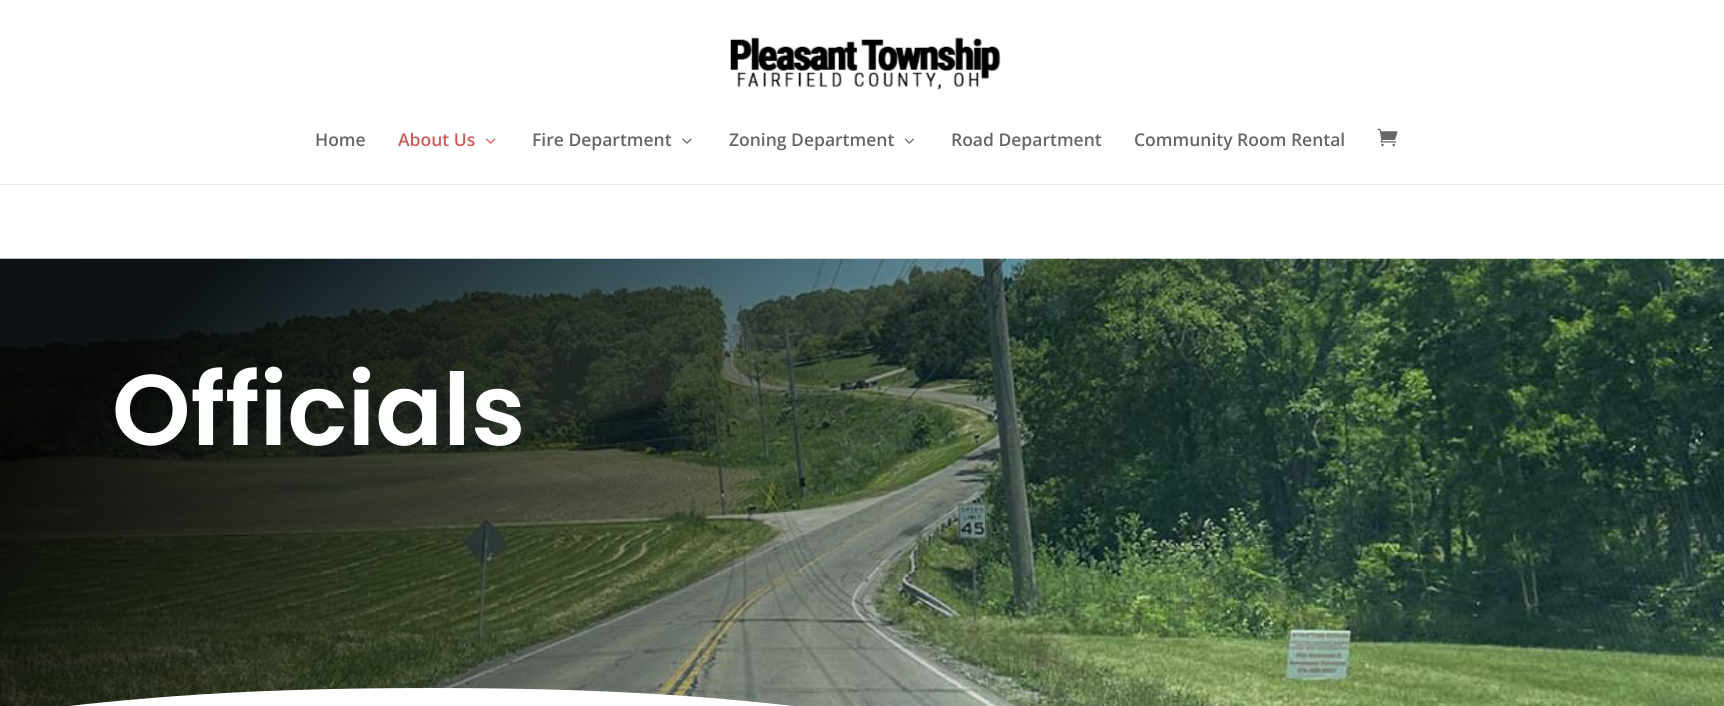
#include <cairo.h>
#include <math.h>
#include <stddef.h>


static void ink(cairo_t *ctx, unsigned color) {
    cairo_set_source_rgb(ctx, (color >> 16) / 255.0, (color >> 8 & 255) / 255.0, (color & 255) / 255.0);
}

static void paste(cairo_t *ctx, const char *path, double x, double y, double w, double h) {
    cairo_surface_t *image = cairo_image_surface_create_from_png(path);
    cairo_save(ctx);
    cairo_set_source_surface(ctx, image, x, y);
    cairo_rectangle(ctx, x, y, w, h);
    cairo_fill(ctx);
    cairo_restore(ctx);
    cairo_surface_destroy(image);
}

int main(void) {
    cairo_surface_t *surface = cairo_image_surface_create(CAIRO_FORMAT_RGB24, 1724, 706);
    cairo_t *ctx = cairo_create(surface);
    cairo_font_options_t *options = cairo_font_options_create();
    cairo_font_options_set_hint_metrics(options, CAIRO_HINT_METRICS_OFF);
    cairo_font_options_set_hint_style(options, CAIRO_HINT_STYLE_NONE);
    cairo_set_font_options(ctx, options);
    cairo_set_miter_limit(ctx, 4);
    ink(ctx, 0xFFFFFF);
    cairo_paint(ctx);
    ink(ctx, 0xE6E6E6);
    cairo_rectangle(ctx, 0, 184, 1724, 1);
    cairo_fill(ctx);
    paste(ctx, "media/1.png", 730, 37, 271, 53);
    cairo_select_font_face(ctx, "Open Sans SemiBold", CAIRO_FONT_SLANT_NORMAL, CAIRO_FONT_WEIGHT_NORMAL);
    cairo_set_font_size(ctx, 17.5);
    ink(ctx, 0x666666);
    cairo_move_to(ctx, 315, 146);
    cairo_show_text(ctx, "Home");
    ink(ctx, 0xCD5C5C);
    cairo_move_to(ctx, 398, 146);
    cairo_show_text(ctx, "About Us");
    paste(ctx, "media/2.png", 486, 138, 10, 6);
    ink(ctx, 0x666666);
    cairo_move_to(ctx, 532, 146);
    cairo_show_text(ctx, "Fire Department");
    paste(ctx, "media/3.png", 682, 138, 10, 6);
    cairo_move_to(ctx, 729, 146);
    cairo_show_text(ctx, "Zoning Department");
    paste(ctx, "media/4.png", 904, 138, 10, 6);
    cairo_move_to(ctx, 951, 146);
    cairo_show_text(ctx, "Road Department");
    cairo_move_to(ctx, 1134, 146);
    cairo_show_text(ctx, "Community Room Rental");
    paste(ctx, "media/5.png", 1377, 128, 21, 19);
    paste(ctx, "media/6.png", 0, 258, 1724, 448);
    cairo_select_font_face(ctx, "Poppins SemiBold", CAIRO_FONT_SLANT_NORMAL, CAIRO_FONT_WEIGHT_NORMAL);
    cairo_set_font_size(ctx, 100);
    ink(ctx, 0xFFFFFF);
    cairo_move_to(ctx, 112, 445);
    cairo_show_text(ctx, "Officials");
    cairo_new_path(ctx);
    cairo_move_to(ctx, 431, 688);
    cairo_curve_to(ctx, 862, 688, 862, 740, 1294, 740);
    cairo_curve_to(ctx, 1509, 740, 1617, 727, 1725, 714);
    cairo_line_to(ctx, 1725, 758);
    cairo_line_to(ctx, 0, 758);
    cairo_line_to(ctx, 0, 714);
    cairo_curve_to(ctx, 108, 701, 216, 688, 431, 688);
    cairo_close_path(ctx);
    cairo_fill(ctx);
    cairo_surface_write_to_png(surface, "image.png");
    cairo_font_options_destroy(options);
    cairo_destroy(ctx);
    cairo_surface_destroy(surface);
    return 0;
}
